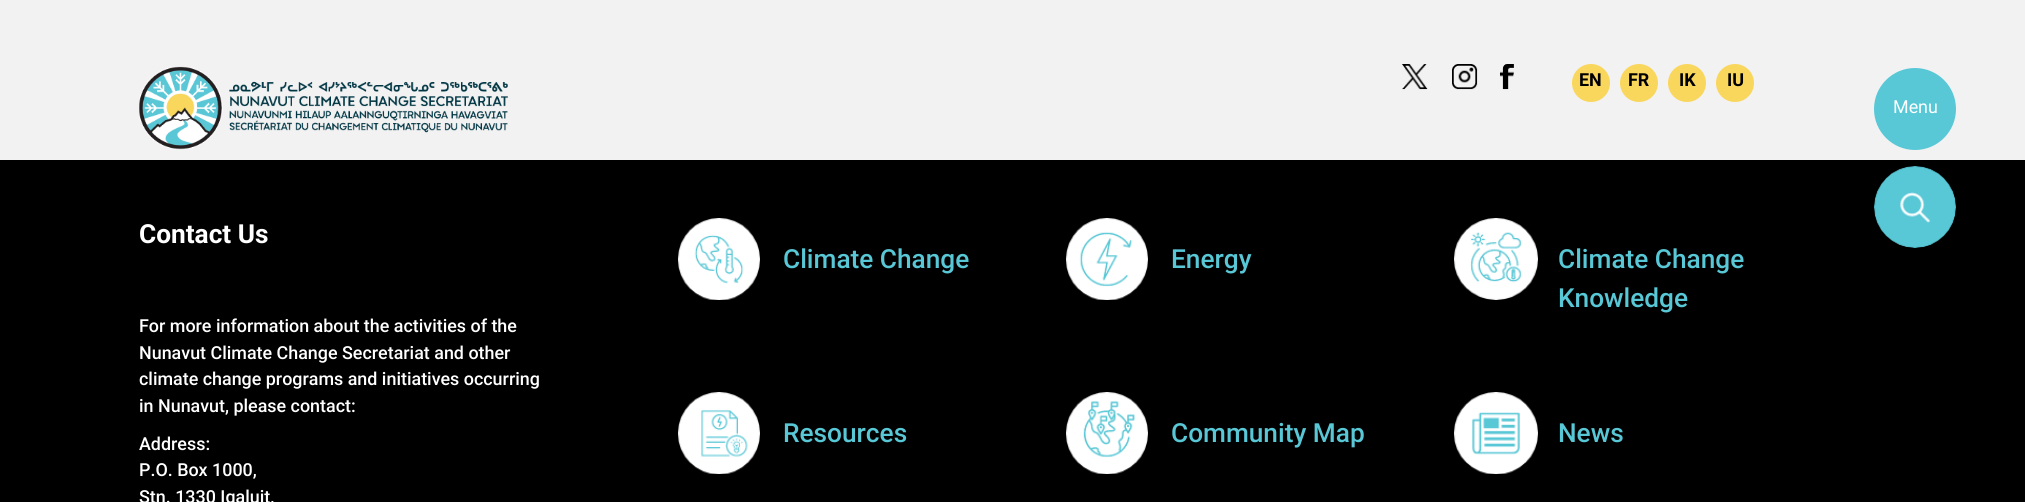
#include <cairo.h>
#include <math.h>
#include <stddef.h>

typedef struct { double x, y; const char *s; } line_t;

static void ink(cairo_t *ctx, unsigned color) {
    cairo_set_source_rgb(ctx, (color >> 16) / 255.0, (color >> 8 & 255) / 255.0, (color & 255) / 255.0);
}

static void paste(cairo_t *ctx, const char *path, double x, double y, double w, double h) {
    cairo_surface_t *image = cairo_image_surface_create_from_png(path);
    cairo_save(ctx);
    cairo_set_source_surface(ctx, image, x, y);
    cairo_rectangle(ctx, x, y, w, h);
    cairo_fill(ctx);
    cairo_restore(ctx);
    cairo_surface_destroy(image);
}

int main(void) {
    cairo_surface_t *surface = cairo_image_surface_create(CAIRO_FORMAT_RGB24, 2025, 502);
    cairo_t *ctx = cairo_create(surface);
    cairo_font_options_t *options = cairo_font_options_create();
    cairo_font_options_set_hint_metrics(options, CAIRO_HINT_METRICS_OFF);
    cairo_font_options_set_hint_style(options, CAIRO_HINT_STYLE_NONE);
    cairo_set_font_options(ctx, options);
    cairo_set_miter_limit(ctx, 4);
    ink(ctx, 0x000000);
    cairo_paint(ctx);
    ink(ctx, 0xF2F2F2);
    cairo_rectangle(ctx, 0, 0, 2025, 160);
    cairo_fill(ctx);
    paste(ctx, "media/1.png", 139, 66, 369, 84);
    paste(ctx, "media/2.png", 1402, 64, 26, 26);
    paste(ctx, "media/3.png", 1452, 64, 26, 26);
    paste(ctx, "media/4.png", 1500, 64, 14, 26);
    ink(ctx, 0xF9D65C);
    cairo_arc(ctx, 1591, 83, 19, 0, 2 * M_PI);
    cairo_fill(ctx);
    cairo_select_font_face(ctx, "Roboto", CAIRO_FONT_SLANT_NORMAL, CAIRO_FONT_WEIGHT_BOLD);
    cairo_set_font_size(ctx, 17.9);
    ink(ctx, 0x000000);
    cairo_move_to(ctx, 1579, 86);
    cairo_show_text(ctx, "EN");
    ink(ctx, 0xF9D65C);
    cairo_new_path(ctx);
    cairo_arc(ctx, 1639, 83, 19, 0, 2 * M_PI);
    cairo_fill(ctx);
    ink(ctx, 0x000000);
    cairo_move_to(ctx, 1628, 86);
    cairo_show_text(ctx, "FR");
    ink(ctx, 0xF9D65C);
    cairo_new_path(ctx);
    cairo_arc(ctx, 1687, 83, 19, 0, 2 * M_PI);
    cairo_fill(ctx);
    ink(ctx, 0x000000);
    cairo_move_to(ctx, 1679, 86);
    cairo_show_text(ctx, "IK");
    ink(ctx, 0xF9D65C);
    cairo_new_path(ctx);
    cairo_arc(ctx, 1735, 83, 19, 0, 2 * M_PI);
    cairo_fill(ctx);
    ink(ctx, 0x000000);
    cairo_move_to(ctx, 1727, 86);
    cairo_show_text(ctx, "IU");
    ink(ctx, 0x58C7D6);
    cairo_new_path(ctx);
    cairo_arc(ctx, 1915, 109, 41, 0, 2 * M_PI);
    cairo_fill(ctx);
    cairo_select_font_face(ctx, "Roboto", CAIRO_FONT_SLANT_NORMAL, CAIRO_FONT_WEIGHT_NORMAL);
    ink(ctx, 0xFFFFFF);
    cairo_move_to(ctx, 1893, 113);
    cairo_show_text(ctx, "Menu");
    paste(ctx, "media/5.png", 1874, 166, 82, 82);
    cairo_select_font_face(ctx, "Roboto", CAIRO_FONT_SLANT_NORMAL, CAIRO_FONT_WEIGHT_BOLD);
    cairo_set_font_size(ctx, 26.25);
    cairo_move_to(ctx, 139, 243);
    cairo_show_text(ctx, "Contact Us");
    cairo_select_font_face(ctx, "Roboto Medium", CAIRO_FONT_SLANT_NORMAL, CAIRO_FONT_WEIGHT_NORMAL);
    cairo_set_font_size(ctx, 17.9);
    {
        static const line_t items[] = {
            {139, 332, "For more information about the activities of the"},
            {139, 359, "Nunavut Climate Change Secretariat and other"},
            {139, 385, "climate change programs and initiatives occurring"},
            {139, 412, "in Nunavut, please contact:"},
            {139, 450, "Address:"},
            {139, 476, "P.O. Box 1000,"},
            {139, 503, "Stn. 1330 Iqaluit,"},
        };
        for (size_t i = 0; i < sizeof items / sizeof *items; i++) {
            cairo_move_to(ctx, items[i].x, items[i].y);
            cairo_show_text(ctx, items[i].s);
        }
    }
    paste(ctx, "media/6.png", 678, 218, 82, 82);
    cairo_set_font_size(ctx, 26.25);
    ink(ctx, 0x58C7D6);
    cairo_move_to(ctx, 783, 268);
    cairo_show_text(ctx, "Climate Change");
    paste(ctx, "media/7.png", 1066, 218, 82, 82);
    cairo_move_to(ctx, 1171, 268);
    cairo_show_text(ctx, "Energy");
    paste(ctx, "media/8.png", 1454, 218, 84, 82);
    cairo_move_to(ctx, 1558, 268);
    cairo_show_text(ctx, "Climate Change");
    cairo_move_to(ctx, 1558, 307);
    cairo_show_text(ctx, "Knowledge");
    paste(ctx, "media/9.png", 678, 392, 82, 82);
    cairo_move_to(ctx, 783, 442);
    cairo_show_text(ctx, "Resources");
    paste(ctx, "media/10.png", 1066, 392, 82, 82);
    cairo_move_to(ctx, 1171, 442);
    cairo_show_text(ctx, "Community Map");
    paste(ctx, "media/11.png", 1454, 392, 84, 82);
    cairo_move_to(ctx, 1558, 442);
    cairo_show_text(ctx, "News");
    cairo_surface_write_to_png(surface, "image.png");
    cairo_font_options_destroy(options);
    cairo_destroy(ctx);
    cairo_surface_destroy(surface);
    return 0;
}
